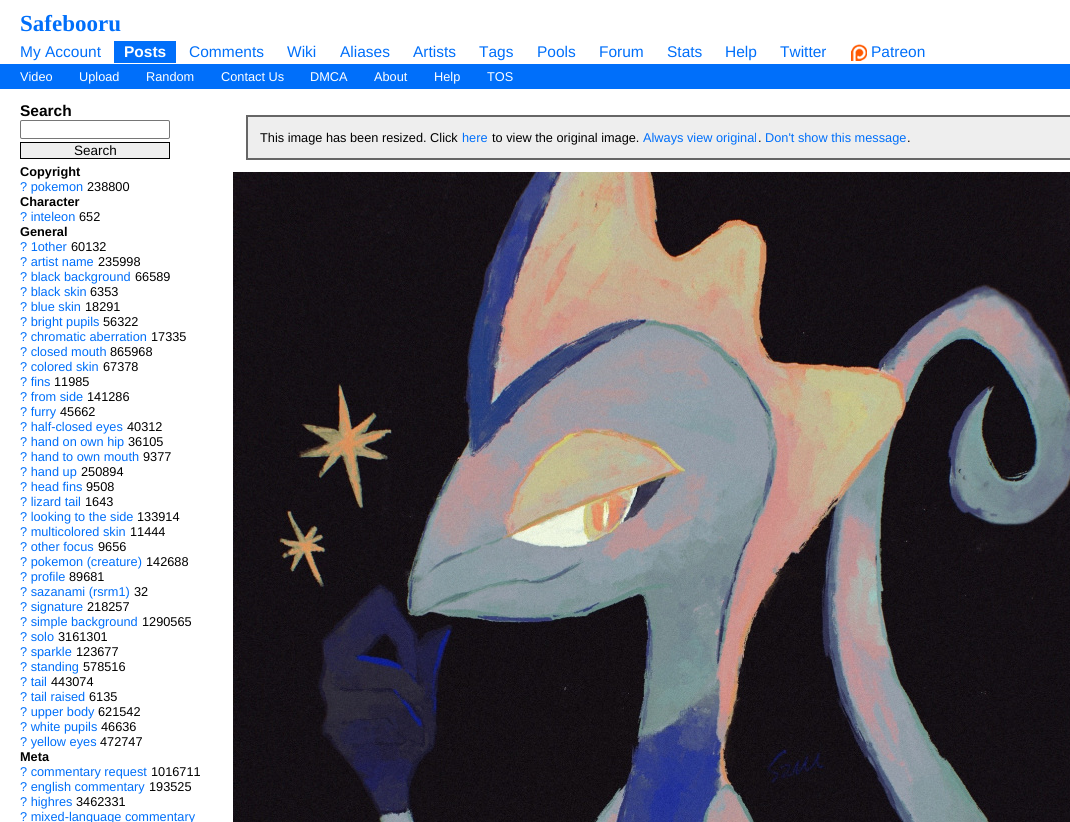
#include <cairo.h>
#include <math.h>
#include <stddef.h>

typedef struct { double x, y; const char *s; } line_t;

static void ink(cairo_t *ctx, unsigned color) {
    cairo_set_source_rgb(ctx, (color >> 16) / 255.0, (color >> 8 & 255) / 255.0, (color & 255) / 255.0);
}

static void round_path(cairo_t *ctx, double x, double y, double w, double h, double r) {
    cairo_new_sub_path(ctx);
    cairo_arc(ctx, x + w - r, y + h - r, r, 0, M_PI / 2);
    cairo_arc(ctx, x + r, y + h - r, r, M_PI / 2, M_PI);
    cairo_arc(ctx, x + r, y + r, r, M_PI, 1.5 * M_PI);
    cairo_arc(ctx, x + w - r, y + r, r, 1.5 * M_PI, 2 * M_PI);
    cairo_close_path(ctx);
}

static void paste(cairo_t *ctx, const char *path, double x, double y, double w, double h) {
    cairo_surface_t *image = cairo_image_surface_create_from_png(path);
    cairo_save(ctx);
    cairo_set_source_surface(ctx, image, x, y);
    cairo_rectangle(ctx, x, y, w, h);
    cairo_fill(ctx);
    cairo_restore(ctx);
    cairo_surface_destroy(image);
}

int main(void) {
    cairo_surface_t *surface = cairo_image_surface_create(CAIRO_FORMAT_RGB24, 1070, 822);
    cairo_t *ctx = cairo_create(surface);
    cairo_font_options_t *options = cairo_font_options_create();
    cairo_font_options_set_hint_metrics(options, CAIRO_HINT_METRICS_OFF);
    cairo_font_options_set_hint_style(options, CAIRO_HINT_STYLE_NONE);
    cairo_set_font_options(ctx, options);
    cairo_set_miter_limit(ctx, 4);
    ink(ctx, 0xFFFFFF);
    cairo_paint(ctx);
    cairo_select_font_face(ctx, "Liberation Serif", CAIRO_FONT_SLANT_NORMAL, CAIRO_FONT_WEIGHT_BOLD);
    cairo_set_font_size(ctx, 23);
    ink(ctx, 0x006FFA);
    cairo_move_to(ctx, 20, 31);
    cairo_show_text(ctx, "Safebooru");
    cairo_select_font_face(ctx, "Liberation Sans", CAIRO_FONT_SLANT_NORMAL, CAIRO_FONT_WEIGHT_NORMAL);
    cairo_set_font_size(ctx, 15.5);
    cairo_move_to(ctx, 20, 57);
    cairo_show_text(ctx, "My Account");
    cairo_rectangle(ctx, 114, 41, 62, 22);
    cairo_fill(ctx);
    cairo_select_font_face(ctx, "Liberation Sans", CAIRO_FONT_SLANT_NORMAL, CAIRO_FONT_WEIGHT_BOLD);
    ink(ctx, 0xFFFFFF);
    cairo_move_to(ctx, 124, 57);
    cairo_show_text(ctx, "Posts");
    cairo_select_font_face(ctx, "Liberation Sans", CAIRO_FONT_SLANT_NORMAL, CAIRO_FONT_WEIGHT_NORMAL);
    ink(ctx, 0x006FFA);
    {
        static const line_t items[] = {
            {189, 57, "Comments"},
            {287, 57, "Wiki"},
            {340, 57, "Aliases"},
            {413, 57, "Artists"},
            {479, 57, "Tags"},
            {537, 57, "Pools"},
            {599, 57, "Forum"},
            {667, 57, "Stats"},
            {725, 57, "Help"},
            {780, 57, "Twitter"},
        };
        for (size_t i = 0; i < sizeof items / sizeof *items; i++) {
            cairo_move_to(ctx, items[i].x, items[i].y);
            cairo_show_text(ctx, items[i].s);
        }
    }
    paste(ctx, "media/1.png", 851, 44, 16, 17);
    cairo_move_to(ctx, 871, 57);
    cairo_show_text(ctx, "Patreon");
    cairo_rectangle(ctx, 0, 64, 1070, 25);
    cairo_fill(ctx);
    cairo_set_font_size(ctx, 12.75);
    ink(ctx, 0xFFFFFF);
    {
        static const line_t items[] = {
            {20, 81, "Video"},
            {79, 81, "Upload"},
            {146, 81, "Random"},
            {221, 81, "Contact Us"},
            {310, 81, "DMCA"},
            {374, 81, "About"},
            {434, 81, "Help"},
            {487, 81, "TOS"},
        };
        for (size_t i = 0; i < sizeof items / sizeof *items; i++) {
            cairo_move_to(ctx, items[i].x, items[i].y);
            cairo_show_text(ctx, items[i].s);
        }
    }
    cairo_select_font_face(ctx, "Liberation Sans", CAIRO_FONT_SLANT_NORMAL, CAIRO_FONT_WEIGHT_BOLD);
    cairo_set_font_size(ctx, 15.5);
    ink(ctx, 0x000000);
    cairo_move_to(ctx, 20, 116);
    cairo_show_text(ctx, "Search");
    round_path(ctx, 20.5, 120.5, 149, 18, 1.5);
    ink(ctx, 0x767676);
    cairo_set_line_width(ctx, 1);
    cairo_stroke(ctx);
    ink(ctx, 0xEFEFEF);
    cairo_rectangle(ctx, 20.5, 142.5, 149, 16);
    cairo_fill_preserve(ctx);
    ink(ctx, 0x000000);
    cairo_stroke(ctx);
    cairo_select_font_face(ctx, "Liberation Sans", CAIRO_FONT_SLANT_NORMAL, CAIRO_FONT_WEIGHT_NORMAL);
    cairo_set_font_size(ctx, 13.5);
    cairo_move_to(ctx, 74, 155);
    cairo_show_text(ctx, "Search");
    cairo_select_font_face(ctx, "Liberation Sans", CAIRO_FONT_SLANT_NORMAL, CAIRO_FONT_WEIGHT_BOLD);
    cairo_set_font_size(ctx, 12.75);
    cairo_move_to(ctx, 20, 176);
    cairo_show_text(ctx, "Copyright");
    cairo_select_font_face(ctx, "Liberation Sans", CAIRO_FONT_SLANT_NORMAL, CAIRO_FONT_WEIGHT_NORMAL);
    ink(ctx, 0x006FFA);
    cairo_move_to(ctx, 20, 191);
    cairo_show_text(ctx, "? pokemon");
    ink(ctx, 0x000000);
    cairo_move_to(ctx, 87, 191);
    cairo_show_text(ctx, "238800");
    cairo_select_font_face(ctx, "Liberation Sans", CAIRO_FONT_SLANT_NORMAL, CAIRO_FONT_WEIGHT_BOLD);
    cairo_move_to(ctx, 20, 206);
    cairo_show_text(ctx, "Character");
    cairo_select_font_face(ctx, "Liberation Sans", CAIRO_FONT_SLANT_NORMAL, CAIRO_FONT_WEIGHT_NORMAL);
    ink(ctx, 0x006FFA);
    cairo_move_to(ctx, 20, 221);
    cairo_show_text(ctx, "? inteleon");
    ink(ctx, 0x000000);
    cairo_move_to(ctx, 79, 221);
    cairo_show_text(ctx, "652");
    cairo_select_font_face(ctx, "Liberation Sans", CAIRO_FONT_SLANT_NORMAL, CAIRO_FONT_WEIGHT_BOLD);
    cairo_move_to(ctx, 20, 236);
    cairo_show_text(ctx, "General");
    cairo_select_font_face(ctx, "Liberation Sans", CAIRO_FONT_SLANT_NORMAL, CAIRO_FONT_WEIGHT_NORMAL);
    ink(ctx, 0x006FFA);
    cairo_move_to(ctx, 20, 251);
    cairo_show_text(ctx, "? 1other");
    ink(ctx, 0x000000);
    cairo_move_to(ctx, 71, 251);
    cairo_show_text(ctx, "60132");
    ink(ctx, 0x006FFA);
    cairo_move_to(ctx, 20, 266);
    cairo_show_text(ctx, "? artist name");
    ink(ctx, 0x000000);
    cairo_move_to(ctx, 98, 266);
    cairo_show_text(ctx, "235998");
    ink(ctx, 0x006FFA);
    cairo_move_to(ctx, 20, 281);
    cairo_show_text(ctx, "? black background");
    ink(ctx, 0x000000);
    cairo_move_to(ctx, 135, 281);
    cairo_show_text(ctx, "66589");
    ink(ctx, 0x006FFA);
    cairo_move_to(ctx, 20, 296);
    cairo_show_text(ctx, "? black skin");
    ink(ctx, 0x000000);
    cairo_move_to(ctx, 90, 296);
    cairo_show_text(ctx, "6353");
    ink(ctx, 0x006FFA);
    cairo_move_to(ctx, 20, 311);
    cairo_show_text(ctx, "? blue skin");
    ink(ctx, 0x000000);
    cairo_move_to(ctx, 85, 311);
    cairo_show_text(ctx, "18291");
    ink(ctx, 0x006FFA);
    cairo_move_to(ctx, 20, 326);
    cairo_show_text(ctx, "? bright pupils");
    ink(ctx, 0x000000);
    cairo_move_to(ctx, 103, 326);
    cairo_show_text(ctx, "56322");
    ink(ctx, 0x006FFA);
    cairo_move_to(ctx, 20, 341);
    cairo_show_text(ctx, "? chromatic aberration");
    ink(ctx, 0x000000);
    cairo_move_to(ctx, 151, 341);
    cairo_show_text(ctx, "17335");
    ink(ctx, 0x006FFA);
    cairo_move_to(ctx, 20, 356);
    cairo_show_text(ctx, "? closed mouth");
    ink(ctx, 0x000000);
    cairo_move_to(ctx, 110, 356);
    cairo_show_text(ctx, "865968");
    ink(ctx, 0x006FFA);
    cairo_move_to(ctx, 20, 371);
    cairo_show_text(ctx, "? colored skin");
    ink(ctx, 0x000000);
    cairo_move_to(ctx, 103, 371);
    cairo_show_text(ctx, "67378");
    ink(ctx, 0x006FFA);
    cairo_move_to(ctx, 20, 386);
    cairo_show_text(ctx, "? fins");
    ink(ctx, 0x000000);
    cairo_move_to(ctx, 54, 386);
    cairo_show_text(ctx, "11985");
    ink(ctx, 0x006FFA);
    cairo_move_to(ctx, 20, 401);
    cairo_show_text(ctx, "? from side");
    ink(ctx, 0x000000);
    cairo_move_to(ctx, 87, 401);
    cairo_show_text(ctx, "141286");
    ink(ctx, 0x006FFA);
    cairo_move_to(ctx, 20, 416);
    cairo_show_text(ctx, "? furry");
    ink(ctx, 0x000000);
    cairo_move_to(ctx, 60, 416);
    cairo_show_text(ctx, "45662");
    ink(ctx, 0x006FFA);
    cairo_move_to(ctx, 20, 431);
    cairo_show_text(ctx, "? half-closed eyes");
    ink(ctx, 0x000000);
    cairo_move_to(ctx, 127, 431);
    cairo_show_text(ctx, "40312");
    ink(ctx, 0x006FFA);
    cairo_move_to(ctx, 20, 446);
    cairo_show_text(ctx, "? hand on own hip");
    ink(ctx, 0x000000);
    cairo_move_to(ctx, 128, 446);
    cairo_show_text(ctx, "36105");
    ink(ctx, 0x006FFA);
    cairo_move_to(ctx, 20, 461);
    cairo_show_text(ctx, "? hand to own mouth");
    ink(ctx, 0x000000);
    cairo_move_to(ctx, 143, 461);
    cairo_show_text(ctx, "9377");
    ink(ctx, 0x006FFA);
    cairo_move_to(ctx, 20, 476);
    cairo_show_text(ctx, "? hand up");
    ink(ctx, 0x000000);
    cairo_move_to(ctx, 81, 476);
    cairo_show_text(ctx, "250894");
    ink(ctx, 0x006FFA);
    cairo_move_to(ctx, 20, 491);
    cairo_show_text(ctx, "? head fins");
    ink(ctx, 0x000000);
    cairo_move_to(ctx, 86, 491);
    cairo_show_text(ctx, "9508");
    ink(ctx, 0x006FFA);
    cairo_move_to(ctx, 20, 506);
    cairo_show_text(ctx, "? lizard tail");
    ink(ctx, 0x000000);
    cairo_move_to(ctx, 85, 506);
    cairo_show_text(ctx, "1643");
    ink(ctx, 0x006FFA);
    cairo_move_to(ctx, 20, 521);
    cairo_show_text(ctx, "? looking to the side");
    ink(ctx, 0x000000);
    cairo_move_to(ctx, 137, 521);
    cairo_show_text(ctx, "133914");
    ink(ctx, 0x006FFA);
    cairo_move_to(ctx, 20, 536);
    cairo_show_text(ctx, "? multicolored skin");
    ink(ctx, 0x000000);
    cairo_move_to(ctx, 130, 536);
    cairo_show_text(ctx, "11444");
    ink(ctx, 0x006FFA);
    cairo_move_to(ctx, 20, 551);
    cairo_show_text(ctx, "? other focus");
    ink(ctx, 0x000000);
    cairo_move_to(ctx, 98, 551);
    cairo_show_text(ctx, "9656");
    ink(ctx, 0x006FFA);
    cairo_move_to(ctx, 20, 566);
    cairo_show_text(ctx, "? pokemon (creature)");
    ink(ctx, 0x000000);
    cairo_move_to(ctx, 146, 566);
    cairo_show_text(ctx, "142688");
    ink(ctx, 0x006FFA);
    cairo_move_to(ctx, 20, 581);
    cairo_show_text(ctx, "? profile");
    ink(ctx, 0x000000);
    cairo_move_to(ctx, 69, 581);
    cairo_show_text(ctx, "89681");
    ink(ctx, 0x006FFA);
    cairo_move_to(ctx, 20, 596);
    cairo_show_text(ctx, "? sazanami (rsrm1)");
    ink(ctx, 0x000000);
    cairo_move_to(ctx, 134, 596);
    cairo_show_text(ctx, "32");
    ink(ctx, 0x006FFA);
    cairo_move_to(ctx, 20, 611);
    cairo_show_text(ctx, "? signature");
    ink(ctx, 0x000000);
    cairo_move_to(ctx, 87, 611);
    cairo_show_text(ctx, "218257");
    ink(ctx, 0x006FFA);
    cairo_move_to(ctx, 20, 626);
    cairo_show_text(ctx, "? simple background");
    ink(ctx, 0x000000);
    cairo_move_to(ctx, 142, 626);
    cairo_show_text(ctx, "1290565");
    ink(ctx, 0x006FFA);
    cairo_move_to(ctx, 20, 641);
    cairo_show_text(ctx, "? solo");
    ink(ctx, 0x000000);
    cairo_move_to(ctx, 58, 641);
    cairo_show_text(ctx, "3161301");
    ink(ctx, 0x006FFA);
    cairo_move_to(ctx, 20, 656);
    cairo_show_text(ctx, "? sparkle");
    ink(ctx, 0x000000);
    cairo_move_to(ctx, 76, 656);
    cairo_show_text(ctx, "123677");
    ink(ctx, 0x006FFA);
    cairo_move_to(ctx, 20, 671);
    cairo_show_text(ctx, "? standing");
    ink(ctx, 0x000000);
    cairo_move_to(ctx, 83, 671);
    cairo_show_text(ctx, "578516");
    ink(ctx, 0x006FFA);
    cairo_move_to(ctx, 20, 686);
    cairo_show_text(ctx, "? tail");
    ink(ctx, 0x000000);
    cairo_move_to(ctx, 51, 686);
    cairo_show_text(ctx, "443074");
    ink(ctx, 0x006FFA);
    cairo_move_to(ctx, 20, 701);
    cairo_show_text(ctx, "? tail raised");
    ink(ctx, 0x000000);
    cairo_move_to(ctx, 89, 701);
    cairo_show_text(ctx, "6135");
    ink(ctx, 0x006FFA);
    cairo_move_to(ctx, 20, 716);
    cairo_show_text(ctx, "? upper body");
    ink(ctx, 0x000000);
    cairo_move_to(ctx, 98, 716);
    cairo_show_text(ctx, "621542");
    ink(ctx, 0x006FFA);
    cairo_move_to(ctx, 20, 731);
    cairo_show_text(ctx, "? white pupils");
    ink(ctx, 0x000000);
    cairo_move_to(ctx, 101, 731);
    cairo_show_text(ctx, "46636");
    ink(ctx, 0x006FFA);
    cairo_move_to(ctx, 20, 746);
    cairo_show_text(ctx, "? yellow eyes");
    ink(ctx, 0x000000);
    cairo_move_to(ctx, 100, 746);
    cairo_show_text(ctx, "472747");
    cairo_select_font_face(ctx, "Liberation Sans", CAIRO_FONT_SLANT_NORMAL, CAIRO_FONT_WEIGHT_BOLD);
    cairo_move_to(ctx, 20, 761);
    cairo_show_text(ctx, "Meta");
    cairo_select_font_face(ctx, "Liberation Sans", CAIRO_FONT_SLANT_NORMAL, CAIRO_FONT_WEIGHT_NORMAL);
    ink(ctx, 0x006FFA);
    cairo_move_to(ctx, 20, 776);
    cairo_show_text(ctx, "? commentary request");
    ink(ctx, 0x000000);
    cairo_move_to(ctx, 151, 776);
    cairo_show_text(ctx, "1016711");
    ink(ctx, 0x006FFA);
    cairo_move_to(ctx, 20, 791);
    cairo_show_text(ctx, "? english commentary");
    ink(ctx, 0x000000);
    cairo_move_to(ctx, 149, 791);
    cairo_show_text(ctx, "193525");
    ink(ctx, 0x006FFA);
    cairo_move_to(ctx, 20, 806);
    cairo_show_text(ctx, "? highres");
    ink(ctx, 0x000000);
    cairo_move_to(ctx, 76, 806);
    cairo_show_text(ctx, "3462331");
    ink(ctx, 0x006FFA);
    cairo_move_to(ctx, 20, 821);
    cairo_show_text(ctx, "? mixed-language commentary");
    ink(ctx, 0xEEEEEE);
    cairo_rectangle(ctx, 247, 116, 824, 43);
    cairo_fill_preserve(ctx);
    ink(ctx, 0x666666);
    cairo_set_line_width(ctx, 2);
    cairo_stroke(ctx);
    ink(ctx, 0x000000);
    cairo_move_to(ctx, 260, 142);
    cairo_show_text(ctx, "This image has been resized. Click");
    ink(ctx, 0x006FFA);
    cairo_move_to(ctx, 462, 142);
    cairo_show_text(ctx, "here");
    ink(ctx, 0x000000);
    cairo_move_to(ctx, 492, 142);
    cairo_show_text(ctx, "to view the original image.");
    ink(ctx, 0x006FFA);
    cairo_move_to(ctx, 643, 142);
    cairo_show_text(ctx, "Always view original");
    ink(ctx, 0x000000);
    cairo_move_to(ctx, 758, 142);
    cairo_show_text(ctx, ".");
    ink(ctx, 0x006FFA);
    cairo_move_to(ctx, 765, 142);
    cairo_show_text(ctx, "Don't show this message");
    ink(ctx, 0x000000);
    cairo_move_to(ctx, 907, 142);
    cairo_show_text(ctx, ".");
    paste(ctx, "media/2.png", 233, 172, 837, 650);
    cairo_surface_write_to_png(surface, "image.png");
    cairo_font_options_destroy(options);
    cairo_destroy(ctx);
    cairo_surface_destroy(surface);
    return 0;
}
